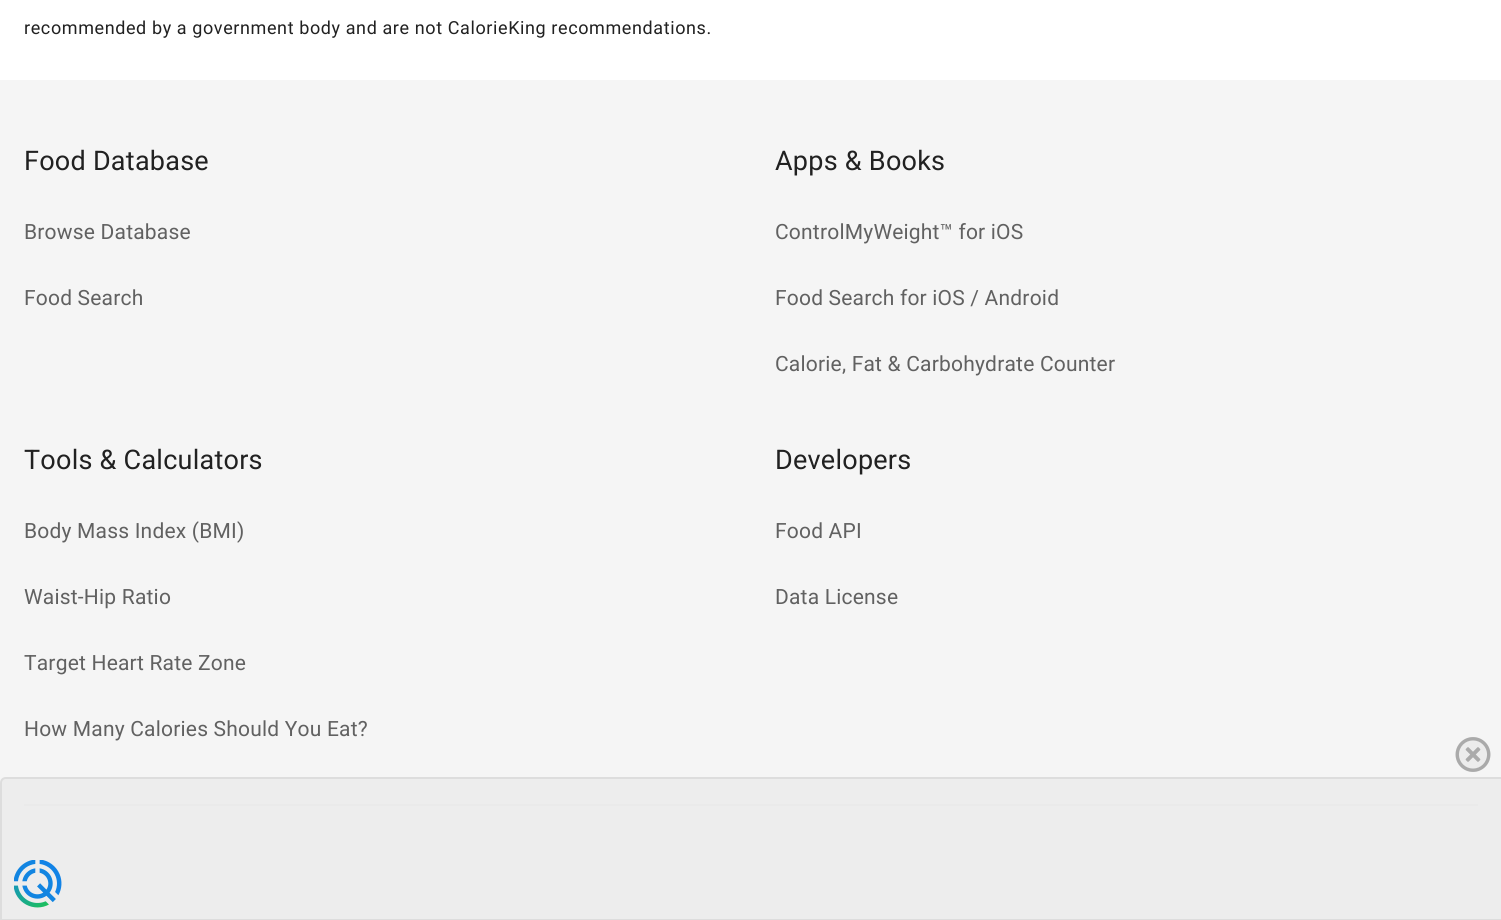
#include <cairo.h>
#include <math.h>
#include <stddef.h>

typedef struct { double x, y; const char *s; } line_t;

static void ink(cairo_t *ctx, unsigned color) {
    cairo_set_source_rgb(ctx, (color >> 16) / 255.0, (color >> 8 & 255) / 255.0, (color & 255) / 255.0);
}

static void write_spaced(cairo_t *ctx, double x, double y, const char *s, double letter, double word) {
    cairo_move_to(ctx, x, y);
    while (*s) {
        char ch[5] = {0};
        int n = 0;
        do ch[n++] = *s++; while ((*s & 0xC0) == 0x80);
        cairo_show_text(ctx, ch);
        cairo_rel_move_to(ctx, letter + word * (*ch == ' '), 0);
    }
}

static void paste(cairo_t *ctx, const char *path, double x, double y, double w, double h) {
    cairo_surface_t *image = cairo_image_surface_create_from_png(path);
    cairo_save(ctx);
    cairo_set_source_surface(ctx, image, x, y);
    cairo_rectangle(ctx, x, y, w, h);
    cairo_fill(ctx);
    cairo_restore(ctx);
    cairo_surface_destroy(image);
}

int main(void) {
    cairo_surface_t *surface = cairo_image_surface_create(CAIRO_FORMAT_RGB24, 1501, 920);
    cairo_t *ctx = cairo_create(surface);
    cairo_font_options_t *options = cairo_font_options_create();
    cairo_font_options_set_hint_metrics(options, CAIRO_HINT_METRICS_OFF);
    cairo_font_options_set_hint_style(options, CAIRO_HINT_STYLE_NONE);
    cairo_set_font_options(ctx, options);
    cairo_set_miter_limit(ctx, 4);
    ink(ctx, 0xFFFFFF);
    cairo_paint(ctx);
    cairo_select_font_face(ctx, "Roboto", CAIRO_FONT_SLANT_NORMAL, CAIRO_FONT_WEIGHT_NORMAL);
    cairo_set_font_size(ctx, 18);
    ink(ctx, 0x212121);
    write_spaced(ctx, 24, 34, "recommended by a government body and are not CalorieKing recommendations.", 0.6, 0);
    ink(ctx, 0xF5F5F5);
    cairo_rectangle(ctx, 0, 80, 1501, 839);
    cairo_fill(ctx);
    cairo_set_font_size(ctx, 27);
    ink(ctx, 0x212121);
    write_spaced(ctx, 24, 170, "Food Database", 0.25, 0);
    cairo_set_font_size(ctx, 21);
    ink(ctx, 0x616161);
    write_spaced(ctx, 24, 239, "Browse Database", 0.2, 0);
    write_spaced(ctx, 24, 305, "Food Search", 0.2, 0);
    cairo_set_font_size(ctx, 27);
    ink(ctx, 0x212121);
    write_spaced(ctx, 775, 170, "Apps & Books", 0.25, 0);
    cairo_set_font_size(ctx, 21);
    ink(ctx, 0x616161);
    {
        static const line_t items[] = {
            {775, 239, "ControlMyWeight™ for iOS"},
            {775, 305, "Food Search for iOS / Android"},
            {775, 371, "Calorie, Fat & Carbohydrate Counter"},
        };
        for (size_t i = 0; i < sizeof items / sizeof *items; i++) {
            write_spaced(ctx, items[i].x, items[i].y, items[i].s, 0.2, 0);
        }
    }
    cairo_set_font_size(ctx, 27);
    ink(ctx, 0x212121);
    write_spaced(ctx, 24, 469, "Tools & Calculators", 0.25, 0);
    cairo_set_font_size(ctx, 21);
    ink(ctx, 0x616161);
    {
        static const line_t items[] = {
            {24, 538, "Body Mass Index (BMI)"},
            {24, 604, "Waist-Hip Ratio"},
            {24, 670, "Target Heart Rate Zone"},
            {24, 736, "How Many Calories Should You Eat?"},
        };
        for (size_t i = 0; i < sizeof items / sizeof *items; i++) {
            write_spaced(ctx, items[i].x, items[i].y, items[i].s, 0.2, 0);
        }
    }
    cairo_set_font_size(ctx, 27);
    ink(ctx, 0x212121);
    write_spaced(ctx, 775, 469, "Developers", 0.25, 0);
    cairo_set_font_size(ctx, 21);
    ink(ctx, 0x616161);
    write_spaced(ctx, 775, 538, "Food API", 0.2, 0);
    write_spaced(ctx, 775, 604, "Data License", 0.2, 0);
    ink(ctx, 0xD8D8D8);
    cairo_rectangle(ctx, 24, 804, 1454, 2);
    cairo_fill(ctx);
    cairo_set_source_rgba(ctx, 0.922, 0.922, 0.922, 0.89);
    cairo_new_path(ctx);
    cairo_move_to(ctx, 6, 778);
    cairo_line_to(ctx, 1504, 778);
    cairo_line_to(ctx, 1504, 920);
    cairo_line_to(ctx, 1, 920);
    cairo_line_to(ctx, 1, 783);
    cairo_curve_to(ctx, 1, 780, 3, 778, 6, 778);
    cairo_close_path(ctx);
    cairo_fill_preserve(ctx);
    ink(ctx, 0xDDDDDD);
    cairo_stroke(ctx);
    paste(ctx, "media/1.png", 1455, 737, 36, 35);
    paste(ctx, "media/2.png", 14, 860, 48, 48);
    cairo_surface_write_to_png(surface, "image.png");
    cairo_font_options_destroy(options);
    cairo_destroy(ctx);
    cairo_surface_destroy(surface);
    return 0;
}
